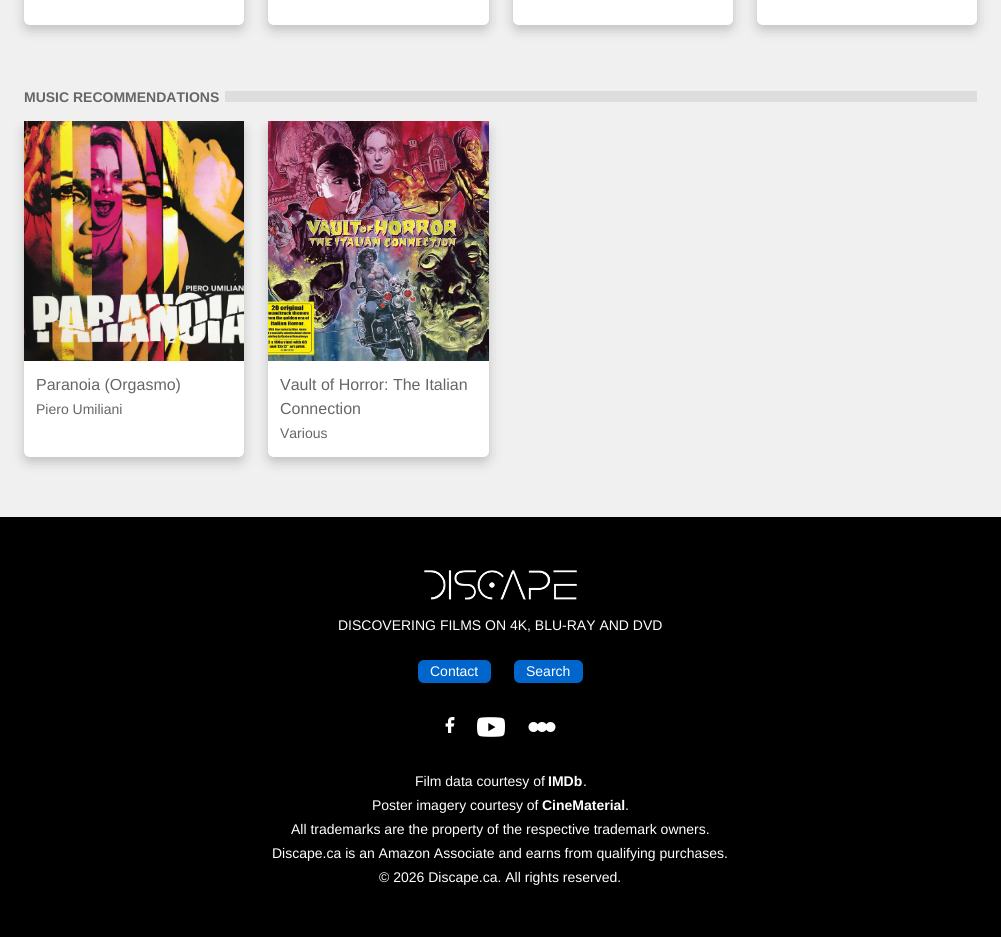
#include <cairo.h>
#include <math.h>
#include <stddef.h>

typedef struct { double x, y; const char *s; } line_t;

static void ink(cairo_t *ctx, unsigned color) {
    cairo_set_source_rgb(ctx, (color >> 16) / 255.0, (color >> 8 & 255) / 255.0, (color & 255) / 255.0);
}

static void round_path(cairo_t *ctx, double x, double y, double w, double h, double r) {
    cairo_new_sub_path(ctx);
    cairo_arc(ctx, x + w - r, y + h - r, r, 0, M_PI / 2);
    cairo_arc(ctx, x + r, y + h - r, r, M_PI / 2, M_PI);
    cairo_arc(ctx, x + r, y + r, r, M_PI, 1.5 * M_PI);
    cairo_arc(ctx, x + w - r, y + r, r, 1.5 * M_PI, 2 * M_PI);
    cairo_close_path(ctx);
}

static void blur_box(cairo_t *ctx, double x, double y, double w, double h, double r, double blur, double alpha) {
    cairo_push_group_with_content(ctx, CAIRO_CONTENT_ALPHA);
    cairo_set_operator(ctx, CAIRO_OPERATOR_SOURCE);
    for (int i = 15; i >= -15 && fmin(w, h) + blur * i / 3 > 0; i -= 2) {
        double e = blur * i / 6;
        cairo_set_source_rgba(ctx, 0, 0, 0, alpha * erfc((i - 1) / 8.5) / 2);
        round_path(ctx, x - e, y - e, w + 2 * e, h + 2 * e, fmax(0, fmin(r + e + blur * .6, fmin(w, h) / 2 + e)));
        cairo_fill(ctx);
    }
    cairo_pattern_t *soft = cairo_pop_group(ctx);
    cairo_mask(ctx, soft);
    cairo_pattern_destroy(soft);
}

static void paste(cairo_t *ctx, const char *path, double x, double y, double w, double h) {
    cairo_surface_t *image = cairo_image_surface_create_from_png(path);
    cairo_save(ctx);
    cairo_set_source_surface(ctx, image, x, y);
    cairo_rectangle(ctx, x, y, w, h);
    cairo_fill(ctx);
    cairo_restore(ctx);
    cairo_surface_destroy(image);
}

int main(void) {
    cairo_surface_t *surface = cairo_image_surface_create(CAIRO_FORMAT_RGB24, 1001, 937);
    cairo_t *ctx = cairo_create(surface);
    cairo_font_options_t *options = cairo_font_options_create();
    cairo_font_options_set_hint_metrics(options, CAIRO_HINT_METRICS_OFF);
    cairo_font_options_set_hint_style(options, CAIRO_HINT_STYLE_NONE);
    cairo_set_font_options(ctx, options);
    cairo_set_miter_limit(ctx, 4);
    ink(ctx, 0x000000);
    cairo_paint(ctx);
    ink(ctx, 0xF0F0F0);
    cairo_rectangle(ctx, 0, 0, 1001, 517);
    cairo_fill(ctx);
    ink(ctx, 0x000000);
    blur_box(ctx, 24, -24, 220, 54, 6, 6, 0.2);
    ink(ctx, 0xFFFFFF);
    cairo_new_path(ctx);
    cairo_move_to(ctx, 24, -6);
    cairo_line_to(ctx, 244, -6);
    cairo_line_to(ctx, 244, 19);
    cairo_curve_to(ctx, 244, 22.5, 241.5, 25, 238, 25);
    cairo_line_to(ctx, 30, 25);
    cairo_curve_to(ctx, 26.5, 25, 24, 22.5, 24, 19);
    cairo_close_path(ctx);
    cairo_fill(ctx);
    ink(ctx, 0x000000);
    blur_box(ctx, 268, -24, 221, 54, 6, 6, 0.2);
    ink(ctx, 0xFFFFFF);
    cairo_new_path(ctx);
    cairo_move_to(ctx, 268, -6);
    cairo_line_to(ctx, 489, -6);
    cairo_line_to(ctx, 489, 19);
    cairo_curve_to(ctx, 489, 22.5, 486.5, 25, 483, 25);
    cairo_line_to(ctx, 274, 25);
    cairo_curve_to(ctx, 270.5, 25, 268, 22.5, 268, 19);
    cairo_close_path(ctx);
    cairo_fill(ctx);
    ink(ctx, 0x000000);
    blur_box(ctx, 513, -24, 220, 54, 6, 6, 0.2);
    ink(ctx, 0xFFFFFF);
    cairo_new_path(ctx);
    cairo_move_to(ctx, 513, -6);
    cairo_line_to(ctx, 733, -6);
    cairo_line_to(ctx, 733, 19);
    cairo_curve_to(ctx, 733, 22.5, 730.5, 25, 727, 25);
    cairo_line_to(ctx, 519, 25);
    cairo_curve_to(ctx, 515.5, 25, 513, 22.5, 513, 19);
    cairo_close_path(ctx);
    cairo_fill(ctx);
    ink(ctx, 0x000000);
    blur_box(ctx, 757, -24, 220, 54, 6, 6, 0.2);
    ink(ctx, 0xFFFFFF);
    cairo_new_path(ctx);
    cairo_move_to(ctx, 757, -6);
    cairo_line_to(ctx, 977, -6);
    cairo_line_to(ctx, 977, 19);
    cairo_curve_to(ctx, 977, 22.5, 974.5, 25, 971, 25);
    cairo_line_to(ctx, 763, 25);
    cairo_curve_to(ctx, 759.5, 25, 757, 22.5, 757, 19);
    cairo_close_path(ctx);
    cairo_fill(ctx);
    cairo_select_font_face(ctx, "Liberation Sans", CAIRO_FONT_SLANT_NORMAL, CAIRO_FONT_WEIGHT_BOLD);
    cairo_set_font_size(ctx, 14);
    ink(ctx, 0x666666);
    cairo_move_to(ctx, 24, 102);
    cairo_show_text(ctx, "MUSIC RECOMMENDATIONS");
    ink(ctx, 0xDDDDDD);
    cairo_rectangle(ctx, 225, 91, 752, 11);
    cairo_fill(ctx);
    cairo_save(ctx);
    cairo_rectangle(ctx, 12, 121, 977, 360);
    cairo_clip(ctx);
    ink(ctx, 0x000000);
    blur_box(ctx, 24, 126, 220, 336, 6, 6, 0.2);
    cairo_restore(ctx);
    ink(ctx, 0xFFFFFF);
    cairo_new_path(ctx);
    cairo_move_to(ctx, 24, 121);
    cairo_line_to(ctx, 244, 121);
    cairo_line_to(ctx, 244, 451);
    cairo_curve_to(ctx, 244, 454.5, 241.5, 457, 238, 457);
    cairo_line_to(ctx, 30, 457);
    cairo_curve_to(ctx, 26.5, 457, 24, 454.5, 24, 451);
    cairo_close_path(ctx);
    cairo_fill(ctx);
    paste(ctx, "media/1.png", 24, 121, 220, 240);
    cairo_select_font_face(ctx, "Liberation Sans", CAIRO_FONT_SLANT_NORMAL, CAIRO_FONT_WEIGHT_NORMAL);
    cairo_set_font_size(ctx, 16);
    ink(ctx, 0x666666);
    cairo_move_to(ctx, 36, 390);
    cairo_show_text(ctx, "Paranoia (Orgasmo)");
    cairo_set_font_size(ctx, 14);
    cairo_move_to(ctx, 36, 414);
    cairo_show_text(ctx, "Piero Umiliani");
    cairo_save(ctx);
    cairo_rectangle(ctx, 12, 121, 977, 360);
    cairo_clip(ctx);
    ink(ctx, 0x000000);
    blur_box(ctx, 268, 126, 221, 336, 6, 6, 0.2);
    cairo_restore(ctx);
    ink(ctx, 0xFFFFFF);
    cairo_new_path(ctx);
    cairo_move_to(ctx, 268, 121);
    cairo_line_to(ctx, 489, 121);
    cairo_line_to(ctx, 489, 451);
    cairo_curve_to(ctx, 489, 454.5, 486.5, 457, 483, 457);
    cairo_line_to(ctx, 274, 457);
    cairo_curve_to(ctx, 270.5, 457, 268, 454.5, 268, 451);
    cairo_close_path(ctx);
    cairo_fill(ctx);
    paste(ctx, "media/2.png", 268, 121, 221, 240);
    cairo_set_font_size(ctx, 16);
    ink(ctx, 0x666666);
    cairo_move_to(ctx, 280, 390);
    cairo_show_text(ctx, "Vault of Horror: The Italian");
    cairo_move_to(ctx, 280, 414);
    cairo_show_text(ctx, "Connection");
    cairo_set_font_size(ctx, 14);
    cairo_move_to(ctx, 280, 438);
    cairo_show_text(ctx, "Various");
    paste(ctx, "media/3.png", 424, 570, 153, 30);
    ink(ctx, 0xFFFFFF);
    cairo_move_to(ctx, 338, 630);
    cairo_show_text(ctx, "DISCOVERING FILMS ON 4K, BLU-RAY AND DVD");
    ink(ctx, 0x0066CC);
    round_path(ctx, 418, 660, 73, 23, 6);
    cairo_fill(ctx);
    ink(ctx, 0xFFFFFF);
    cairo_move_to(ctx, 430, 676);
    cairo_show_text(ctx, "Contact");
    ink(ctx, 0x0066CC);
    round_path(ctx, 514, 660, 69, 23, 6);
    cairo_fill(ctx);
    ink(ctx, 0xFFFFFF);
    cairo_move_to(ctx, 526, 676);
    cairo_show_text(ctx, "Search");
    paste(ctx, "media/4.png", 445, 717, 10, 16);
    paste(ctx, "media/5.png", 477, 717, 28, 20);
    paste(ctx, "media/6.png", 528, 722, 28, 10);
    cairo_move_to(ctx, 415, 786);
    cairo_show_text(ctx, "Film data courtesy of");
    cairo_select_font_face(ctx, "Liberation Sans", CAIRO_FONT_SLANT_NORMAL, CAIRO_FONT_WEIGHT_BOLD);
    cairo_move_to(ctx, 548, 786);
    cairo_show_text(ctx, "IMDb");
    cairo_select_font_face(ctx, "Liberation Sans", CAIRO_FONT_SLANT_NORMAL, CAIRO_FONT_WEIGHT_NORMAL);
    cairo_move_to(ctx, 583, 786);
    cairo_show_text(ctx, ".");
    cairo_move_to(ctx, 372, 810);
    cairo_show_text(ctx, "Poster imagery courtesy of");
    cairo_select_font_face(ctx, "Liberation Sans", CAIRO_FONT_SLANT_NORMAL, CAIRO_FONT_WEIGHT_BOLD);
    cairo_move_to(ctx, 542, 810);
    cairo_show_text(ctx, "CineMaterial");
    cairo_select_font_face(ctx, "Liberation Sans", CAIRO_FONT_SLANT_NORMAL, CAIRO_FONT_WEIGHT_NORMAL);
    {
        static const line_t items[] = {
            {625, 810, "."},
            {291, 834, "All trademarks are the property of the respective trademark owners."},
            {272, 858, "Discape.ca is an Amazon Associate and earns from qualifying purchases."},
            {379, 882, "© 2026 Discape.ca. All rights reserved."},
        };
        for (size_t i = 0; i < sizeof items / sizeof *items; i++) {
            cairo_move_to(ctx, items[i].x, items[i].y);
            cairo_show_text(ctx, items[i].s);
        }
    }
    cairo_surface_write_to_png(surface, "image.png");
    cairo_font_options_destroy(options);
    cairo_destroy(ctx);
    cairo_surface_destroy(surface);
    return 0;
}
